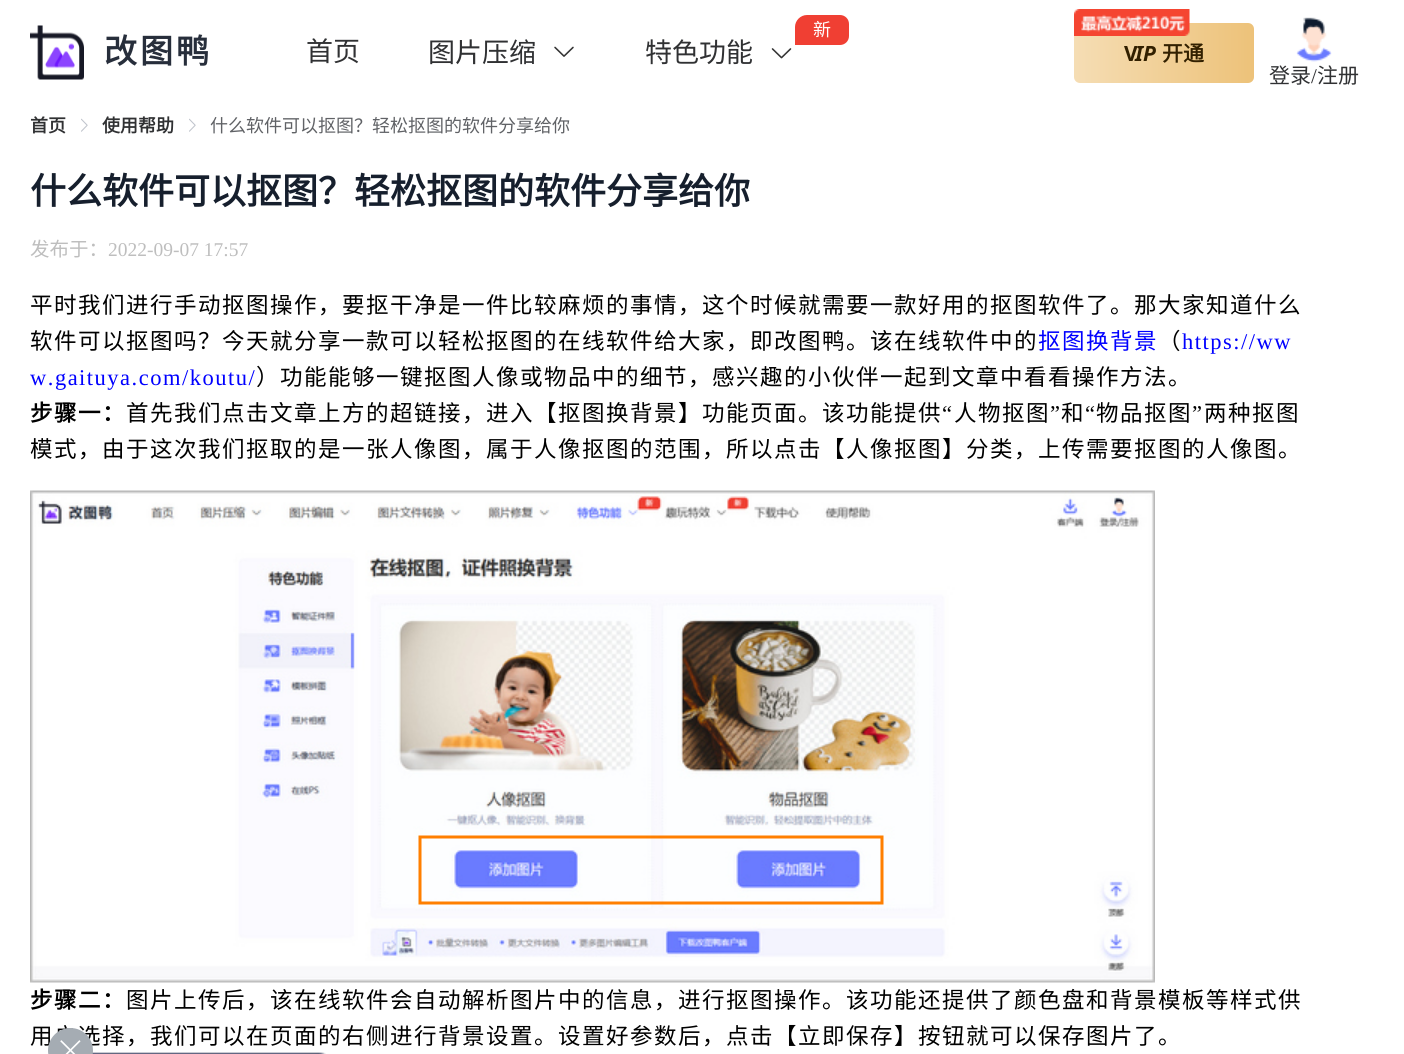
#include <cairo.h>
#include <math.h>
#include <stddef.h>


static void ink(cairo_t *ctx, unsigned color) {
    cairo_set_source_rgb(ctx, (color >> 16) / 255.0, (color >> 8 & 255) / 255.0, (color & 255) / 255.0);
}

static void write_spaced(cairo_t *ctx, double x, double y, const char *s, double letter, double word) {
    cairo_move_to(ctx, x, y);
    while (*s) {
        char ch[5] = {0};
        int n = 0;
        do ch[n++] = *s++; while ((*s & 0xC0) == 0x80);
        cairo_show_text(ctx, ch);
        cairo_rel_move_to(ctx, letter + word * (*ch == ' '), 0);
    }
}

static void round_path(cairo_t *ctx, double x, double y, double w, double h, double r) {
    cairo_new_sub_path(ctx);
    cairo_arc(ctx, x + w - r, y + h - r, r, 0, M_PI / 2);
    cairo_arc(ctx, x + r, y + h - r, r, M_PI / 2, M_PI);
    cairo_arc(ctx, x + r, y + r, r, M_PI, 1.5 * M_PI);
    cairo_arc(ctx, x + w - r, y + r, r, 1.5 * M_PI, 2 * M_PI);
    cairo_close_path(ctx);
}

static void paste(cairo_t *ctx, const char *path, double x, double y, double w, double h) {
    cairo_surface_t *image = cairo_image_surface_create_from_png(path);
    cairo_save(ctx);
    cairo_set_source_surface(ctx, image, x, y);
    cairo_rectangle(ctx, x, y, w, h);
    cairo_fill(ctx);
    cairo_restore(ctx);
    cairo_surface_destroy(image);
}

int main(void) {
    cairo_surface_t *surface = cairo_image_surface_create(CAIRO_FORMAT_RGB24, 1404, 1054);
    cairo_t *ctx = cairo_create(surface);
    cairo_font_options_t *options = cairo_font_options_create();
    cairo_font_options_set_hint_metrics(options, CAIRO_HINT_METRICS_OFF);
    cairo_font_options_set_hint_style(options, CAIRO_HINT_STYLE_NONE);
    cairo_set_font_options(ctx, options);
    cairo_set_miter_limit(ctx, 4);
    cairo_pattern_t *gradient;
    ink(ctx, 0xFFFFFF);
    cairo_paint(ctx);
    paste(ctx, "media/1.png", 30, 25, 54, 55);
    cairo_select_font_face(ctx, "Noto Sans CJK SC", CAIRO_FONT_SLANT_NORMAL, CAIRO_FONT_WEIGHT_BOLD);
    cairo_set_font_size(ctx, 33);
    ink(ctx, 0x272E3B);
    write_spaced(ctx, 104, 63, "改图鸭", 3, 0);
    cairo_select_font_face(ctx, "Noto Sans CJK SC", CAIRO_FONT_SLANT_NORMAL, CAIRO_FONT_WEIGHT_NORMAL);
    cairo_set_font_size(ctx, 27);
    ink(ctx, 0x303133);
    cairo_move_to(ctx, 306, 61);
    cairo_show_text(ctx, "首页");
    cairo_move_to(ctx, 428, 62);
    cairo_show_text(ctx, "图片压缩");
    paste(ctx, "media/2.png", 554, 46, 20, 11);
    ink(ctx, 0xF03F33);
    cairo_new_path(ctx);
    cairo_move_to(ctx, 807, 15);
    cairo_line_to(ctx, 840, 15);
    cairo_curve_to(ctx, 845, 15, 849, 19, 849, 24);
    cairo_line_to(ctx, 849, 36);
    cairo_curve_to(ctx, 849, 41, 845, 45, 840, 45);
    cairo_line_to(ctx, 795, 45);
    cairo_line_to(ctx, 795, 27);
    cairo_curve_to(ctx, 795, 20.5, 800.5, 15, 807, 15);
    cairo_close_path(ctx);
    cairo_fill(ctx);
    cairo_set_font_size(ctx, 18);
    ink(ctx, 0xFFFFFF);
    cairo_move_to(ctx, 813, 36);
    cairo_show_text(ctx, "新");
    cairo_set_font_size(ctx, 27);
    ink(ctx, 0x303133);
    cairo_move_to(ctx, 645, 62);
    cairo_show_text(ctx, "特色功能");
    paste(ctx, "media/3.png", 771, 48, 21, 11);
    gradient = cairo_pattern_create_linear(1074, 53, 1254, 52);
    cairo_pattern_add_color_stop_rgba(gradient, 0, 0.961, 0.867, 0.706, 1);
    cairo_pattern_add_color_stop_rgba(gradient, 1, 0.929, 0.761, 0.475, 1);
    cairo_set_source(ctx, gradient);
    cairo_pattern_destroy(gradient);
    round_path(ctx, 1074, 23, 180, 60, 6);
    cairo_fill(ctx);
    paste(ctx, "media/4.png", 1074, 9, 116, 27);
    cairo_select_font_face(ctx, "Noto Sans", CAIRO_FONT_SLANT_NORMAL, CAIRO_FONT_WEIGHT_BOLD);
    cairo_set_font_size(ctx, 21);
    ink(ctx, 0x322000);
    cairo_move_to(ctx, 1124, 61);
    cairo_show_text(ctx, "V");
    cairo_select_font_face(ctx, "Noto Sans", CAIRO_FONT_SLANT_ITALIC, CAIRO_FONT_WEIGHT_BOLD);
    cairo_move_to(ctx, 1135, 61);
    cairo_show_text(ctx, "IP");
    cairo_select_font_face(ctx, "Noto Sans CJK SC", CAIRO_FONT_SLANT_NORMAL, CAIRO_FONT_WEIGHT_BOLD);
    cairo_move_to(ctx, 1162, 61);
    cairo_show_text(ctx, "开通");
    paste(ctx, "media/5.png", 1296, 17, 36, 45);
    cairo_select_font_face(ctx, "Noto Sans CJK SC", CAIRO_FONT_SLANT_NORMAL, CAIRO_FONT_WEIGHT_NORMAL);
    ink(ctx, 0x303133);
    cairo_move_to(ctx, 1269, 83);
    cairo_show_text(ctx, "登录");
    cairo_select_font_face(ctx, "Liberation Serif", CAIRO_FONT_SLANT_NORMAL, CAIRO_FONT_WEIGHT_NORMAL);
    cairo_move_to(ctx, 1311, 83);
    cairo_show_text(ctx, "/");
    cairo_select_font_face(ctx, "Noto Sans CJK SC", CAIRO_FONT_SLANT_NORMAL, CAIRO_FONT_WEIGHT_NORMAL);
    cairo_move_to(ctx, 1317, 83);
    cairo_show_text(ctx, "注册");
    paste(ctx, "media/6.png", 92, 1052, 234, 2);
    cairo_set_font_size(ctx, 22.5);
    ink(ctx, 0x000000);
    write_spaced(ctx, 30, 1044, "用户选择，我们可以在页面的右侧进行背景设置。设置好参数后，点击【立即保存】按钮就可以保存图片了。", 1.5, 0);
    ink(ctx, 0xA5ACB3);
    cairo_new_path(ctx);
    cairo_arc(ctx, 70.5, 1050.5, 22.5, 0, 2 * M_PI);
    cairo_fill(ctx);
    paste(ctx, "media/7.png", 60, 1040, 21, 14);
    cairo_select_font_face(ctx, "Noto Sans CJK SC", CAIRO_FONT_SLANT_NORMAL, CAIRO_FONT_WEIGHT_BOLD);
    cairo_set_font_size(ctx, 18);
    ink(ctx, 0x303133);
    cairo_move_to(ctx, 30, 132);
    cairo_show_text(ctx, "首页");
    paste(ctx, "media/8.png", 81, 118, 7, 14);
    cairo_move_to(ctx, 102, 132);
    cairo_show_text(ctx, "使用帮助");
    paste(ctx, "media/8.png", 189, 118, 7, 14);
    cairo_select_font_face(ctx, "Noto Sans CJK SC", CAIRO_FONT_SLANT_NORMAL, CAIRO_FONT_WEIGHT_NORMAL);
    ink(ctx, 0x606266);
    cairo_move_to(ctx, 210, 132);
    cairo_show_text(ctx, "什么软件可以抠图？轻松抠图的软件分享给你");
    cairo_select_font_face(ctx, "Noto Sans CJK SC", CAIRO_FONT_SLANT_NORMAL, CAIRO_FONT_WEIGHT_BOLD);
    cairo_set_font_size(ctx, 36);
    ink(ctx, 0x161F2D);
    cairo_move_to(ctx, 30, 204);
    cairo_show_text(ctx, "什么软件可以抠图？轻松抠图的软件分享给你");
    cairo_select_font_face(ctx, "Noto Sans CJK SC", CAIRO_FONT_SLANT_NORMAL, CAIRO_FONT_WEIGHT_NORMAL);
    cairo_set_font_size(ctx, 19.5);
    ink(ctx, 0xBEBEBE);
    cairo_move_to(ctx, 30, 256);
    cairo_show_text(ctx, "发布于：");
    cairo_select_font_face(ctx, "Liberation Serif", CAIRO_FONT_SLANT_NORMAL, CAIRO_FONT_WEIGHT_NORMAL);
    cairo_move_to(ctx, 108, 256);
    cairo_show_text(ctx, "2022-09-07 17:57");
    cairo_select_font_face(ctx, "Noto Sans CJK SC", CAIRO_FONT_SLANT_NORMAL, CAIRO_FONT_WEIGHT_NORMAL);
    cairo_set_font_size(ctx, 22.5);
    ink(ctx, 0x000000);
    write_spaced(ctx, 30, 313, "平时我们进行手动抠图操作，要抠干净是一件比较麻烦的事情，这个时候就需要一款好用的抠图软件了。那大家知道什么", 1.5, 0);
    write_spaced(ctx, 30, 349, "软件可以抠图吗？今天就分享一款可以轻松抠图的在线软件给大家，即改图鸭。该在线软件中的", 1.5, 0);
    ink(ctx, 0x0000FF);
    write_spaced(ctx, 1038, 349, "抠图换背景", 1.5, 0);
    ink(ctx, 0x000000);
    write_spaced(ctx, 1158, 349, "（", 1.5, 0);
    cairo_select_font_face(ctx, "Liberation Serif", CAIRO_FONT_SLANT_NORMAL, CAIRO_FONT_WEIGHT_NORMAL);
    ink(ctx, 0x0000FF);
    write_spaced(ctx, 1182, 349, "https://ww", 1.5, 0);
    write_spaced(ctx, 30, 385, "w.gaituya.com/koutu/", 1.5, 0);
    cairo_select_font_face(ctx, "Noto Sans CJK SC", CAIRO_FONT_SLANT_NORMAL, CAIRO_FONT_WEIGHT_NORMAL);
    ink(ctx, 0x000000);
    write_spaced(ctx, 256, 385, "）功能能够一键抠图人像或物品中的细节，感兴趣的小伙伴一起到文章中看看操作方法。", 1.5, 0);
    cairo_select_font_face(ctx, "Noto Sans CJK SC", CAIRO_FONT_SLANT_NORMAL, CAIRO_FONT_WEIGHT_BOLD);
    write_spaced(ctx, 30, 421, "步骤一：", 1.5, 0);
    cairo_select_font_face(ctx, "Noto Sans CJK SC", CAIRO_FONT_SLANT_NORMAL, CAIRO_FONT_WEIGHT_NORMAL);
    write_spaced(ctx, 126, 421, "首先我们点击文章上方的超链接，进入【抠图换背景】功能页面。该功能提供", 1.5, 0);
    cairo_select_font_face(ctx, "Liberation Serif", CAIRO_FONT_SLANT_NORMAL, CAIRO_FONT_WEIGHT_NORMAL);
    write_spaced(ctx, 942, 421, "“", 1.5, 0);
    cairo_select_font_face(ctx, "Noto Sans CJK SC", CAIRO_FONT_SLANT_NORMAL, CAIRO_FONT_WEIGHT_NORMAL);
    write_spaced(ctx, 954, 421, "人物抠图", 1.5, 0);
    cairo_select_font_face(ctx, "Liberation Serif", CAIRO_FONT_SLANT_NORMAL, CAIRO_FONT_WEIGHT_NORMAL);
    write_spaced(ctx, 1050, 421, "”", 1.5, 0);
    cairo_select_font_face(ctx, "Noto Sans CJK SC", CAIRO_FONT_SLANT_NORMAL, CAIRO_FONT_WEIGHT_NORMAL);
    write_spaced(ctx, 1061, 421, "和", 1.5, 0);
    cairo_select_font_face(ctx, "Liberation Serif", CAIRO_FONT_SLANT_NORMAL, CAIRO_FONT_WEIGHT_NORMAL);
    write_spaced(ctx, 1085, 421, "“", 1.5, 0);
    cairo_select_font_face(ctx, "Noto Sans CJK SC", CAIRO_FONT_SLANT_NORMAL, CAIRO_FONT_WEIGHT_NORMAL);
    write_spaced(ctx, 1096, 421, "物品抠图", 1.5, 0);
    cairo_select_font_face(ctx, "Liberation Serif", CAIRO_FONT_SLANT_NORMAL, CAIRO_FONT_WEIGHT_NORMAL);
    write_spaced(ctx, 1192, 421, "”", 1.5, 0);
    cairo_select_font_face(ctx, "Noto Sans CJK SC", CAIRO_FONT_SLANT_NORMAL, CAIRO_FONT_WEIGHT_NORMAL);
    write_spaced(ctx, 1204, 421, "两种抠图", 1.5, 0);
    write_spaced(ctx, 30, 457, "模式，由于这次我们抠取的是一张人像图，属于人像抠图的范围，所以点击【人像抠图】分类，上传需要抠图的人像图。", 1.5, 0);
    paste(ctx, "media/9.png", 30, 490, 1125, 493);
    cairo_select_font_face(ctx, "Noto Sans CJK SC", CAIRO_FONT_SLANT_NORMAL, CAIRO_FONT_WEIGHT_BOLD);
    write_spaced(ctx, 30, 1008, "步骤二：", 1.5, 0);
    cairo_select_font_face(ctx, "Noto Sans CJK SC", CAIRO_FONT_SLANT_NORMAL, CAIRO_FONT_WEIGHT_NORMAL);
    write_spaced(ctx, 126, 1008, "图片上传后，该在线软件会自动解析图片中的信息，进行抠图操作。该功能还提供了颜色盘和背景模板等样式供", 1.5, 0);
    cairo_surface_write_to_png(surface, "image.png");
    cairo_font_options_destroy(options);
    cairo_destroy(ctx);
    cairo_surface_destroy(surface);
    return 0;
}
